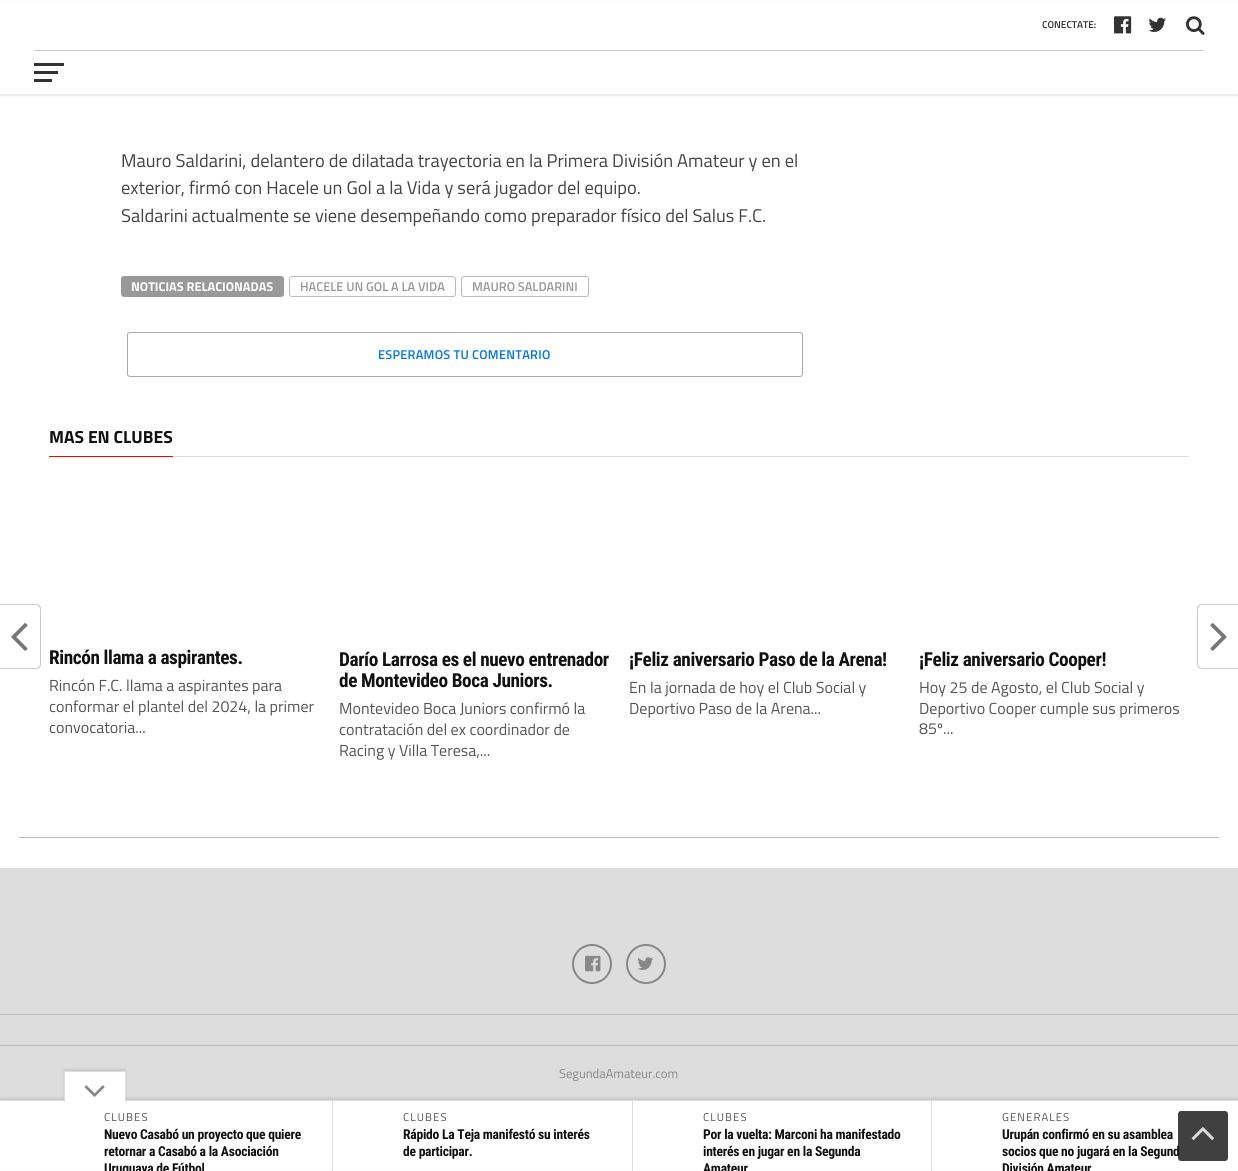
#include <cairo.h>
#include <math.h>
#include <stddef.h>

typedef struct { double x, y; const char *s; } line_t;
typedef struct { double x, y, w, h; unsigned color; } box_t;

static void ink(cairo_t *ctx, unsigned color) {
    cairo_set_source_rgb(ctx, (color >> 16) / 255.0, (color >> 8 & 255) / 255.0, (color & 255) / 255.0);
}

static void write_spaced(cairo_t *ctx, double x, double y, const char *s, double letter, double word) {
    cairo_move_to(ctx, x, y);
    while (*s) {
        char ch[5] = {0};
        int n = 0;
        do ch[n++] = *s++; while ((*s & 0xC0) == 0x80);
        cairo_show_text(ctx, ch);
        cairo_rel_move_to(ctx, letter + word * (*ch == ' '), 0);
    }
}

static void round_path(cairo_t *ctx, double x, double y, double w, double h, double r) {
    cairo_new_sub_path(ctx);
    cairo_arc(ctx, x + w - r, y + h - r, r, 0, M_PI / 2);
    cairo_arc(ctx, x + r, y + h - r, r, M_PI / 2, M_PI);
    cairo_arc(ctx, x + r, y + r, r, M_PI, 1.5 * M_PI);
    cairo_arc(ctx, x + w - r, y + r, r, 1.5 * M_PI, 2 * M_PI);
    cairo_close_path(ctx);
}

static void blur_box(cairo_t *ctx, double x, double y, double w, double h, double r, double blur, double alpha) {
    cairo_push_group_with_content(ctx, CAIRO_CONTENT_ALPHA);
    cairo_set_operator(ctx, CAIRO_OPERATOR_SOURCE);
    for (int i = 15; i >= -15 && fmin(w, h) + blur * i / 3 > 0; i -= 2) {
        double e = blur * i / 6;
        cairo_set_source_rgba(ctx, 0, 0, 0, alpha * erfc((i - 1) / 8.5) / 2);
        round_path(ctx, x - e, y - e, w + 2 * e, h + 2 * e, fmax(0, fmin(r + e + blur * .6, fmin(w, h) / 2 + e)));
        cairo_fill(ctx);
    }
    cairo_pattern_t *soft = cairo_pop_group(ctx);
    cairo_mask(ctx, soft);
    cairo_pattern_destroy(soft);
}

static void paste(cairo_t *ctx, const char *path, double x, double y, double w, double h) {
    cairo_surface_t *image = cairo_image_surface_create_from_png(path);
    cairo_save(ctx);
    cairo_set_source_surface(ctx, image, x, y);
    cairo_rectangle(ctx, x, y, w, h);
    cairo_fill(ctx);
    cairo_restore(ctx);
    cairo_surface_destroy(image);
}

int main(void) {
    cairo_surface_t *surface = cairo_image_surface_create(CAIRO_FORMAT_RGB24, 1238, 1171);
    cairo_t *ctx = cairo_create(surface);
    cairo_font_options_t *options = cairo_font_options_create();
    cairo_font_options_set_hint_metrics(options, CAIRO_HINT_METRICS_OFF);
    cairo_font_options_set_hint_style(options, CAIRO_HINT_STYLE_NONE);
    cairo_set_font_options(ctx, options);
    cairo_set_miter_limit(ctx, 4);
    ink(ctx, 0xFFFFFF);
    cairo_paint(ctx);
    ink(ctx, 0x000000);
    blur_box(ctx, 0, 2, 1238, 94, 0, 1, 0.1);
    ink(ctx, 0xFFFFFF);
    cairo_rectangle(ctx, 0, 1, 1238, 93);
    cairo_fill(ctx);
    ink(ctx, 0xCCCCCC);
    cairo_rectangle(ctx, 34, 50, 1170, 1);
    cairo_fill(ctx);
    cairo_select_font_face(ctx, "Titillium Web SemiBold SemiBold", CAIRO_FONT_SLANT_NORMAL, CAIRO_FONT_WEIGHT_NORMAL);
    cairo_set_font_size(ctx, 10);
    ink(ctx, 0x333333);
    cairo_move_to(ctx, 1042, 28);
    cairo_show_text(ctx, "CONECTATE:");
    paste(ctx, "media/1.png", 1114, 16, 18, 18);
    paste(ctx, "media/2.png", 1148, 17, 18, 15);
    paste(ctx, "media/3.png", 1186, 16, 19, 19);
    {
        static const box_t items[] = {
            {34, 63, 30, 3, 0x333333},
            {34, 71, 24, 3, 0x333333},
            {34, 79, 18, 3, 0x333333},
            {19, 837, 1200, 1, 0xBBBBBB},
        };
        for (size_t i = 0; i < sizeof items / sizeof *items; i++) {
            ink(ctx, items[i].color);
            cairo_rectangle(ctx, items[i].x, items[i].y, items[i].w, items[i].h);
            cairo_fill(ctx);
        }
    }
    cairo_select_font_face(ctx, "Titillium Web", CAIRO_FONT_SLANT_NORMAL, CAIRO_FONT_WEIGHT_NORMAL);
    cairo_set_font_size(ctx, 18.4);
    ink(ctx, 0x444444);
    {
        static const line_t items[] = {
            {121, 167, "Mauro Saldarini, delantero de dilatada trayectoria en la Primera División Amateur y en el"},
            {121, 194, "exterior, firmó con Hacele un Gol a la Vida y será jugador del equipo."},
            {121, 222, "Saldarini actualmente se viene desempeñando como preparador físico del Salus F.C."},
        };
        for (size_t i = 0; i < sizeof items / sizeof *items; i++) {
            cairo_move_to(ctx, items[i].x, items[i].y);
            cairo_show_text(ctx, items[i].s);
        }
    }
    ink(ctx, 0x999999);
    round_path(ctx, 121, 276, 163, 21, 3);
    cairo_fill(ctx);
    cairo_select_font_face(ctx, "Titillium Web", CAIRO_FONT_SLANT_NORMAL, CAIRO_FONT_WEIGHT_BOLD);
    cairo_set_font_size(ctx, 12.75);
    ink(ctx, 0xFFFFFF);
    cairo_move_to(ctx, 131, 291);
    cairo_show_text(ctx, "NOTICIAS RELACIONADAS");
    round_path(ctx, 289.5, 276.5, 166, 20, 2.5);
    ink(ctx, 0xBBBBBB);
    cairo_set_line_width(ctx, 1);
    cairo_stroke(ctx);
    cairo_select_font_face(ctx, "Titillium Web SemiBold SemiBold", CAIRO_FONT_SLANT_NORMAL, CAIRO_FONT_WEIGHT_NORMAL);
    ink(ctx, 0x999999);
    cairo_move_to(ctx, 300, 291);
    cairo_show_text(ctx, "HACELE UN GOL A LA VIDA");
    round_path(ctx, 461.5, 276.5, 127, 20, 2.5);
    ink(ctx, 0xBBBBBB);
    cairo_stroke(ctx);
    ink(ctx, 0x999999);
    cairo_move_to(ctx, 472, 291);
    cairo_show_text(ctx, "MAURO SALDARINI");
    round_path(ctx, 127.5, 332.5, 675, 44, 2.5);
    ink(ctx, 0xAAAAAA);
    cairo_stroke(ctx);
    ink(ctx, 0x0077EE);
    write_spaced(ctx, 378, 359, "ESPERAMOS TU COMENTARIO", 0.25, 0);
    ink(ctx, 0xDDDDDD);
    cairo_rectangle(ctx, 173, 456, 1016, 1);
    cairo_fill(ctx);
    ink(ctx, 0xFF0000);
    cairo_rectangle(ctx, 49, 456, 124, 1);
    cairo_fill(ctx);
    cairo_select_font_face(ctx, "Titillium Web", CAIRO_FONT_SLANT_NORMAL, CAIRO_FONT_WEIGHT_BOLD);
    cairo_set_font_size(ctx, 17.5);
    ink(ctx, 0x111111);
    cairo_move_to(ctx, 49, 443);
    cairo_show_text(ctx, "MAS EN CLUBES");
    cairo_select_font_face(ctx, "Roboto Condensed", CAIRO_FONT_SLANT_NORMAL, CAIRO_FONT_WEIGHT_BOLD);
    cairo_set_font_size(ctx, 19.25);
    write_spaced(ctx, 49, 664, "Rincón llama a aspirantes.", -0.4, 0);
    cairo_select_font_face(ctx, "Titillium Web", CAIRO_FONT_SLANT_NORMAL, CAIRO_FONT_WEIGHT_NORMAL);
    cairo_set_font_size(ctx, 16);
    ink(ctx, 0x555555);
    {
        static const line_t items[] = {
            {49, 691, "Rincón F.C. llama a aspirantes para"},
            {49, 712, "conformar el plantel del 2024, la primer"},
            {49, 733, "convocatoria..."},
        };
        for (size_t i = 0; i < sizeof items / sizeof *items; i++) {
            cairo_move_to(ctx, items[i].x, items[i].y);
            cairo_show_text(ctx, items[i].s);
        }
    }
    cairo_select_font_face(ctx, "Roboto Condensed", CAIRO_FONT_SLANT_NORMAL, CAIRO_FONT_WEIGHT_BOLD);
    cairo_set_font_size(ctx, 19.25);
    ink(ctx, 0x111111);
    write_spaced(ctx, 339, 666, "Darío Larrosa es el nuevo entrenador", -0.4, 0);
    write_spaced(ctx, 339, 687, "de Montevideo Boca Juniors.", -0.4, 0);
    cairo_select_font_face(ctx, "Titillium Web", CAIRO_FONT_SLANT_NORMAL, CAIRO_FONT_WEIGHT_NORMAL);
    cairo_set_font_size(ctx, 16);
    ink(ctx, 0x555555);
    {
        static const line_t items[] = {
            {339, 714, "Montevideo Boca Juniors confirmó la"},
            {339, 735, "contratación del ex coordinador de"},
            {339, 756, "Racing y Villa Teresa,..."},
        };
        for (size_t i = 0; i < sizeof items / sizeof *items; i++) {
            cairo_move_to(ctx, items[i].x, items[i].y);
            cairo_show_text(ctx, items[i].s);
        }
    }
    cairo_select_font_face(ctx, "Roboto Condensed", CAIRO_FONT_SLANT_NORMAL, CAIRO_FONT_WEIGHT_BOLD);
    cairo_set_font_size(ctx, 19.25);
    ink(ctx, 0x111111);
    write_spaced(ctx, 629, 666, "¡Feliz aniversario Paso de la Arena!", -0.4, 0);
    cairo_select_font_face(ctx, "Titillium Web", CAIRO_FONT_SLANT_NORMAL, CAIRO_FONT_WEIGHT_NORMAL);
    cairo_set_font_size(ctx, 16);
    ink(ctx, 0x555555);
    cairo_move_to(ctx, 629, 693);
    cairo_show_text(ctx, "En la jornada de hoy el Club Social y");
    cairo_move_to(ctx, 629, 714);
    cairo_show_text(ctx, "Deportivo Paso de la Arena...");
    cairo_select_font_face(ctx, "Roboto Condensed", CAIRO_FONT_SLANT_NORMAL, CAIRO_FONT_WEIGHT_BOLD);
    cairo_set_font_size(ctx, 19.25);
    ink(ctx, 0x111111);
    write_spaced(ctx, 919, 666, "¡Feliz aniversario Cooper!", -0.4, 0);
    cairo_select_font_face(ctx, "Titillium Web", CAIRO_FONT_SLANT_NORMAL, CAIRO_FONT_WEIGHT_NORMAL);
    cairo_set_font_size(ctx, 16);
    ink(ctx, 0x555555);
    {
        static const line_t items[] = {
            {919, 693, "Hoy 25 de Agosto, el Club Social y"},
            {919, 714, "Deportivo Cooper cumple sus primeros"},
            {919, 734, "85º..."},
        };
        for (size_t i = 0; i < sizeof items / sizeof *items; i++) {
            cairo_move_to(ctx, items[i].x, items[i].y);
            cairo_show_text(ctx, items[i].s);
        }
    }
    ink(ctx, 0xCCCCCC);
    cairo_set_fill_rule(ctx, CAIRO_FILL_RULE_EVEN_ODD);
    cairo_new_path(ctx);
    cairo_move_to(ctx, 0, 604);
    cairo_line_to(ctx, 36, 604);
    cairo_curve_to(ctx, 39, 604, 41, 606, 41, 609);
    cairo_line_to(ctx, 41, 664);
    cairo_curve_to(ctx, 41, 667, 39, 669, 36, 669);
    cairo_line_to(ctx, 0, 669);
    cairo_close_path(ctx);
    cairo_move_to(ctx, 0, 605);
    cairo_line_to(ctx, 36, 605);
    cairo_curve_to(ctx, 38, 605, 40, 607, 40, 609);
    cairo_line_to(ctx, 40, 664);
    cairo_curve_to(ctx, 40, 666, 38, 668, 36, 668);
    cairo_line_to(ctx, 0, 668);
    cairo_close_path(ctx);
    cairo_fill(ctx);
    paste(ctx, "media/4.png", 11, 623, 17, 28);
    cairo_new_path(ctx);
    cairo_move_to(ctx, 1202, 604);
    cairo_line_to(ctx, 1238, 604);
    cairo_line_to(ctx, 1238, 669);
    cairo_line_to(ctx, 1202, 669);
    cairo_curve_to(ctx, 1199, 669, 1197, 667, 1197, 664);
    cairo_line_to(ctx, 1197, 609);
    cairo_curve_to(ctx, 1197, 606, 1199, 604, 1202, 604);
    cairo_close_path(ctx);
    cairo_move_to(ctx, 1202, 605);
    cairo_line_to(ctx, 1238, 605);
    cairo_line_to(ctx, 1238, 668);
    cairo_line_to(ctx, 1202, 668);
    cairo_curve_to(ctx, 1200, 668, 1198, 666, 1198, 664);
    cairo_line_to(ctx, 1198, 609);
    cairo_curve_to(ctx, 1198, 607, 1200, 605, 1202, 605);
    cairo_close_path(ctx);
    cairo_fill(ctx);
    paste(ctx, "media/5.png", 1210, 623, 17, 28);
    ink(ctx, 0xDDDDDD);
    cairo_rectangle(ctx, 0, 868, 1238, 232);
    cairo_fill(ctx);
    cairo_arc(ctx, 592, 964, 19, 0, 2 * M_PI);
    ink(ctx, 0x888888);
    cairo_set_line_width(ctx, 2);
    cairo_stroke(ctx);
    paste(ctx, "media/6.png", 585, 955, 16, 17);
    cairo_arc(ctx, 646, 964, 19, 0, 2 * M_PI);
    cairo_stroke(ctx);
    paste(ctx, "media/7.png", 637, 957, 16, 13);
    ink(ctx, 0xBBBBBB);
    cairo_rectangle(ctx, 0, 1014, 1238, 1);
    cairo_fill(ctx);
    cairo_rectangle(ctx, 0, 1045, 1238, 1);
    cairo_fill(ctx);
    cairo_set_font_size(ctx, 12.75);
    ink(ctx, 0x888888);
    cairo_move_to(ctx, 559, 1078);
    cairo_show_text(ctx, "SegundaAmateur.com");
    ink(ctx, 0x000000);
    blur_box(ctx, 0, 1098, 1238, 71, 0, 1, 0.1);
    ink(ctx, 0xFFFFFF);
    cairo_rectangle(ctx, 0, 1101, 1238, 69);
    cairo_fill(ctx);
    ink(ctx, 0xDDDDDD);
    cairo_rectangle(ctx, 0, 1100, 1238, 1);
    cairo_fill(ctx);
    ink(ctx, 0x000000);
    blur_box(ctx, 64, 1069, 62, 31, 0, 1, 0.1);
    {
        static const box_t items[] = {
            {65, 1072, 60, 29, 0xFFFFFF},
            {64, 1071, 62, 1, 0xDDDDDD},
            {125, 1071, 1, 31, 0xDDDDDD},
            {64, 1071, 1, 31, 0xDDDDDD},
        };
        for (size_t i = 0; i < sizeof items / sizeof *items; i++) {
            ink(ctx, items[i].color);
            cairo_rectangle(ctx, items[i].x, items[i].y, items[i].w, items[i].h);
            cairo_fill(ctx);
        }
    }
    paste(ctx, "media/8.png", 84, 1085, 21, 12);
    cairo_set_font_size(ctx, 11.25);
    ink(ctx, 0x555555);
    write_spaced(ctx, 104, 1121, "CLUBES", 1.1, 0);
    cairo_select_font_face(ctx, "Roboto Condensed", CAIRO_FONT_SLANT_NORMAL, CAIRO_FONT_WEIGHT_BOLD);
    cairo_set_font_size(ctx, 13.6);
    ink(ctx, 0x111111);
    {
        static const line_t items[] = {
            {104, 1139, "Nuevo Casabó un proyecto que quiere"},
            {104, 1156, "retornar a Casabó a la Asociación"},
            {104, 1173, "Uruguaya de Fútbol"},
        };
        for (size_t i = 0; i < sizeof items / sizeof *items; i++) {
            write_spaced(ctx, items[i].x, items[i].y, items[i].s, -0.25, 0);
        }
    }
    ink(ctx, 0xDDDDDD);
    cairo_rectangle(ctx, 332, 1101, 1, 70);
    cairo_fill(ctx);
    cairo_select_font_face(ctx, "Titillium Web", CAIRO_FONT_SLANT_NORMAL, CAIRO_FONT_WEIGHT_NORMAL);
    cairo_set_font_size(ctx, 11.25);
    ink(ctx, 0x555555);
    write_spaced(ctx, 403, 1121, "CLUBES", 1.1, 0);
    cairo_select_font_face(ctx, "Roboto Condensed", CAIRO_FONT_SLANT_NORMAL, CAIRO_FONT_WEIGHT_BOLD);
    cairo_set_font_size(ctx, 13.6);
    ink(ctx, 0x111111);
    write_spaced(ctx, 403, 1139, "Rápido La Teja manifestó su interés", -0.25, 0);
    write_spaced(ctx, 403, 1156, "de participar.", -0.25, 0);
    ink(ctx, 0xDDDDDD);
    cairo_rectangle(ctx, 632, 1101, 1, 70);
    cairo_fill(ctx);
    cairo_select_font_face(ctx, "Titillium Web", CAIRO_FONT_SLANT_NORMAL, CAIRO_FONT_WEIGHT_NORMAL);
    cairo_set_font_size(ctx, 11.25);
    ink(ctx, 0x555555);
    write_spaced(ctx, 703, 1121, "CLUBES", 1.1, 0);
    cairo_select_font_face(ctx, "Roboto Condensed", CAIRO_FONT_SLANT_NORMAL, CAIRO_FONT_WEIGHT_BOLD);
    cairo_set_font_size(ctx, 13.6);
    ink(ctx, 0x111111);
    {
        static const line_t items[] = {
            {703, 1139, "Por la vuelta: Marconi ha manifestado"},
            {703, 1156, "interés en jugar en la Segunda"},
            {703, 1173, "Amateur"},
        };
        for (size_t i = 0; i < sizeof items / sizeof *items; i++) {
            write_spaced(ctx, items[i].x, items[i].y, items[i].s, -0.25, 0);
        }
    }
    ink(ctx, 0xDDDDDD);
    cairo_rectangle(ctx, 931, 1101, 1, 70);
    cairo_fill(ctx);
    cairo_select_font_face(ctx, "Titillium Web", CAIRO_FONT_SLANT_NORMAL, CAIRO_FONT_WEIGHT_NORMAL);
    cairo_set_font_size(ctx, 11.25);
    ink(ctx, 0x555555);
    write_spaced(ctx, 1002, 1121, "GENERALES", 1.1, 0);
    cairo_select_font_face(ctx, "Roboto Condensed", CAIRO_FONT_SLANT_NORMAL, CAIRO_FONT_WEIGHT_BOLD);
    cairo_set_font_size(ctx, 13.6);
    ink(ctx, 0x111111);
    {
        static const line_t items[] = {
            {1002, 1139, "Urupán confirmó en su asamblea"},
            {1002, 1156, "socios que no jugará en la Segund"},
            {1002, 1173, "División Amateur"},
        };
        for (size_t i = 0; i < sizeof items / sizeof *items; i++) {
            write_spaced(ctx, items[i].x, items[i].y, items[i].s, -0.25, 0);
        }
    }
    cairo_set_source_rgba(ctx, 0.067, 0.067, 0.067, 0.8);
    round_path(ctx, 1178, 1111, 50, 50, 3);
    cairo_fill(ctx);
    paste(ctx, "media/9.png", 1191, 1127, 23, 13);
    cairo_surface_write_to_png(surface, "image.png");
    cairo_font_options_destroy(options);
    cairo_destroy(ctx);
    cairo_surface_destroy(surface);
    return 0;
}
